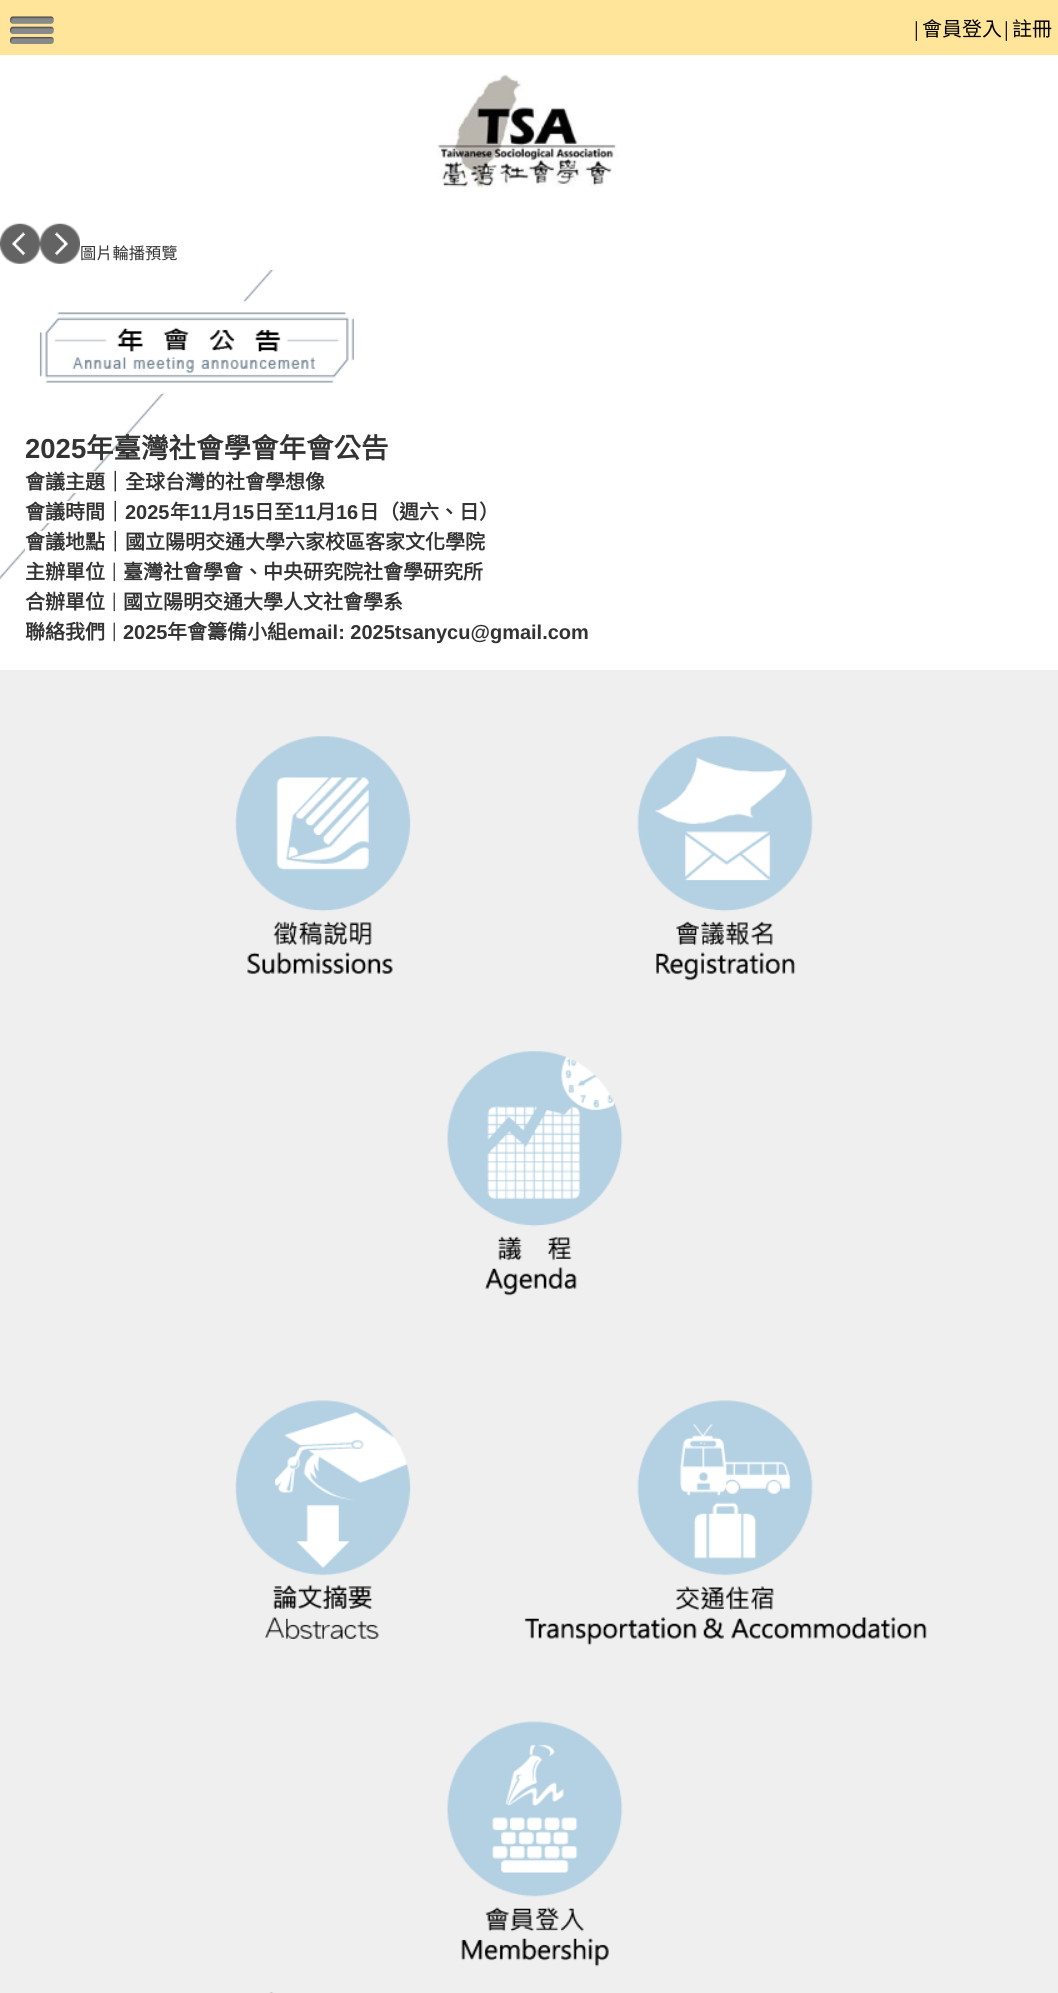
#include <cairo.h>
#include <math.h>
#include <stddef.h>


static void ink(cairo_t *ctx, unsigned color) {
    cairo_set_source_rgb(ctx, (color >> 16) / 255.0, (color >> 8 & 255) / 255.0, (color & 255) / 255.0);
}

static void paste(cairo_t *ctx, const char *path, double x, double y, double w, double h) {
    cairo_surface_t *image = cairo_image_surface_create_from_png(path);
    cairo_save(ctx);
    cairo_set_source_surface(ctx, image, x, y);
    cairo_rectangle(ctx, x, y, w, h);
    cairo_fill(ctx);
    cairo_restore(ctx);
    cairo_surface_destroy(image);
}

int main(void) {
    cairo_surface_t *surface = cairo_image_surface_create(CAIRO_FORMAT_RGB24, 1058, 1993);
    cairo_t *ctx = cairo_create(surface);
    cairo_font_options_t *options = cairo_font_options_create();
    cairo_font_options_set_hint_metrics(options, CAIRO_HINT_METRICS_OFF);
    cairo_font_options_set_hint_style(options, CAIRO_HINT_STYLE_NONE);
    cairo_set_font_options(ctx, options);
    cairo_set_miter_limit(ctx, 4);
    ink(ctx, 0xFFFFFF);
    cairo_paint(ctx);
    ink(ctx, 0xFFE599);
    cairo_rectangle(ctx, 0, 0, 1058, 55);
    cairo_fill(ctx);
    paste(ctx, "media/1.png", 10, 16, 44, 28);
    cairo_select_font_face(ctx, "Liberation Sans", CAIRO_FONT_SLANT_NORMAL, CAIRO_FONT_WEIGHT_NORMAL);
    cairo_set_font_size(ctx, 16.25);
    ink(ctx, 0x000000);
    cairo_move_to(ctx, 912, 36);
    cairo_show_text(ctx, "│");
    cairo_select_font_face(ctx, "Noto Sans CJK TC", CAIRO_FONT_SLANT_NORMAL, CAIRO_FONT_WEIGHT_NORMAL);
    cairo_set_font_size(ctx, 20);
    cairo_move_to(ctx, 922, 36);
    cairo_show_text(ctx, "會員登入");
    cairo_select_font_face(ctx, "Liberation Sans", CAIRO_FONT_SLANT_NORMAL, CAIRO_FONT_WEIGHT_NORMAL);
    cairo_set_font_size(ctx, 16.25);
    cairo_move_to(ctx, 1002, 36);
    cairo_show_text(ctx, "│");
    cairo_select_font_face(ctx, "Noto Sans CJK TC", CAIRO_FONT_SLANT_NORMAL, CAIRO_FONT_WEIGHT_NORMAL);
    cairo_set_font_size(ctx, 20);
    cairo_move_to(ctx, 1012, 36);
    cairo_show_text(ctx, "註冊");
    paste(ctx, "media/2.png", 437, 74, 181, 114);
    paste(ctx, "media/3.png", 0, 223, 40, 41);
    paste(ctx, "media/4.png", 40, 223, 40, 41);
    cairo_set_font_size(ctx, 16.25);
    ink(ctx, 0x333333);
    cairo_move_to(ctx, 80, 259);
    cairo_show_text(ctx, "圖片輪播預覽");
    paste(ctx, "media/5.png", 0, 270, 274, 310);
    paste(ctx, "media/6.png", 39, 301, 315, 93);
    cairo_select_font_face(ctx, "Liberation Sans", CAIRO_FONT_SLANT_NORMAL, CAIRO_FONT_WEIGHT_BOLD);
    cairo_set_font_size(ctx, 27.5);
    cairo_move_to(ctx, 25, 458);
    cairo_show_text(ctx, "2025");
    cairo_select_font_face(ctx, "Noto Sans CJK TC", CAIRO_FONT_SLANT_NORMAL, CAIRO_FONT_WEIGHT_BOLD);
    cairo_move_to(ctx, 86, 458);
    cairo_show_text(ctx, "年臺灣社會學會年會公告");
    ink(ctx, 0xFFFFFF);
    cairo_rectangle(ctx, 73, 471, 24, 22);
    cairo_fill(ctx);
    cairo_set_font_size(ctx, 20);
    ink(ctx, 0x333333);
    cairo_move_to(ctx, 25, 489);
    cairo_show_text(ctx, "會議主題｜全球台灣的社會學想像");
    ink(ctx, 0xFFFFFF);
    cairo_rectangle(ctx, 46, 501, 24, 22);
    cairo_fill(ctx);
    ink(ctx, 0x333333);
    cairo_move_to(ctx, 25, 519);
    cairo_show_text(ctx, "會議時間｜");
    cairo_select_font_face(ctx, "Liberation Sans", CAIRO_FONT_SLANT_NORMAL, CAIRO_FONT_WEIGHT_BOLD);
    cairo_move_to(ctx, 125, 519);
    cairo_show_text(ctx, "2025");
    cairo_select_font_face(ctx, "Noto Sans CJK TC", CAIRO_FONT_SLANT_NORMAL, CAIRO_FONT_WEIGHT_BOLD);
    cairo_move_to(ctx, 170, 519);
    cairo_show_text(ctx, "年");
    cairo_select_font_face(ctx, "Liberation Sans", CAIRO_FONT_SLANT_NORMAL, CAIRO_FONT_WEIGHT_BOLD);
    cairo_move_to(ctx, 190, 519);
    cairo_show_text(ctx, "11");
    cairo_select_font_face(ctx, "Noto Sans CJK TC", CAIRO_FONT_SLANT_NORMAL, CAIRO_FONT_WEIGHT_BOLD);
    cairo_move_to(ctx, 212, 519);
    cairo_show_text(ctx, "月");
    cairo_select_font_face(ctx, "Liberation Sans", CAIRO_FONT_SLANT_NORMAL, CAIRO_FONT_WEIGHT_BOLD);
    cairo_move_to(ctx, 232, 519);
    cairo_show_text(ctx, "15");
    cairo_select_font_face(ctx, "Noto Sans CJK TC", CAIRO_FONT_SLANT_NORMAL, CAIRO_FONT_WEIGHT_BOLD);
    cairo_move_to(ctx, 254, 519);
    cairo_show_text(ctx, "日至");
    cairo_select_font_face(ctx, "Liberation Sans", CAIRO_FONT_SLANT_NORMAL, CAIRO_FONT_WEIGHT_BOLD);
    cairo_move_to(ctx, 294, 519);
    cairo_show_text(ctx, "11");
    cairo_select_font_face(ctx, "Noto Sans CJK TC", CAIRO_FONT_SLANT_NORMAL, CAIRO_FONT_WEIGHT_BOLD);
    cairo_move_to(ctx, 316, 519);
    cairo_show_text(ctx, "月");
    cairo_select_font_face(ctx, "Liberation Sans", CAIRO_FONT_SLANT_NORMAL, CAIRO_FONT_WEIGHT_BOLD);
    cairo_move_to(ctx, 336, 519);
    cairo_show_text(ctx, "16");
    cairo_select_font_face(ctx, "Noto Sans CJK TC", CAIRO_FONT_SLANT_NORMAL, CAIRO_FONT_WEIGHT_BOLD);
    cairo_move_to(ctx, 359, 519);
    cairo_show_text(ctx, "日（週六、日）");
    ink(ctx, 0xFFFFFF);
    cairo_rectangle(ctx, 25, 531, 19, 21);
    cairo_fill(ctx);
    ink(ctx, 0x333333);
    cairo_move_to(ctx, 25, 549);
    cairo_show_text(ctx, "會議地點｜國立陽明交通大學六家校區客家文化學院");
    cairo_move_to(ctx, 25, 579);
    cairo_show_text(ctx, "主辦單位");
    cairo_set_font_size(ctx, 18);
    cairo_move_to(ctx, 105, 579);
    cairo_show_text(ctx, "｜");
    cairo_set_font_size(ctx, 20);
    cairo_move_to(ctx, 123, 579);
    cairo_show_text(ctx, "臺灣社會學會、中央研究院社會學研究所");
    cairo_move_to(ctx, 25, 609);
    cairo_show_text(ctx, "合辦單位");
    cairo_set_font_size(ctx, 18);
    cairo_move_to(ctx, 105, 609);
    cairo_show_text(ctx, "｜");
    cairo_set_font_size(ctx, 20);
    cairo_move_to(ctx, 123, 609);
    cairo_show_text(ctx, "國立陽明交通大學人文社會學系");
    cairo_move_to(ctx, 25, 639);
    cairo_show_text(ctx, "聯絡我們");
    cairo_set_font_size(ctx, 18);
    cairo_move_to(ctx, 105, 639);
    cairo_show_text(ctx, "｜");
    cairo_select_font_face(ctx, "Liberation Sans", CAIRO_FONT_SLANT_NORMAL, CAIRO_FONT_WEIGHT_BOLD);
    cairo_set_font_size(ctx, 20);
    cairo_move_to(ctx, 123, 639);
    cairo_show_text(ctx, "2025");
    cairo_select_font_face(ctx, "Noto Sans CJK TC", CAIRO_FONT_SLANT_NORMAL, CAIRO_FONT_WEIGHT_BOLD);
    cairo_move_to(ctx, 167, 639);
    cairo_show_text(ctx, "年會籌備小組");
    cairo_select_font_face(ctx, "Liberation Sans", CAIRO_FONT_SLANT_NORMAL, CAIRO_FONT_WEIGHT_BOLD);
    cairo_move_to(ctx, 287, 639);
    cairo_show_text(ctx, "email: 2025tsanycu@gmail.com");
    ink(ctx, 0xEFEFEF);
    cairo_rectangle(ctx, 0, 670, 1058, 1323);
    cairo_fill(ctx);
    paste(ctx, "media/7.png", 235, 736, 176, 238);
    paste(ctx, "media/8.png", 637, 736, 176, 245);
    paste(ctx, "media/9.png", 447, 1051, 176, 245);
    paste(ctx, "media/10.png", 235, 1400, 176, 239);
    paste(ctx, "media/11.png", 524, 1400, 403, 246);
    paste(ctx, "media/12.png", 447, 1721, 176, 246);
    paste(ctx, "media/13.png", 269, 1992, 5, 1);
    cairo_surface_write_to_png(surface, "image.png");
    cairo_font_options_destroy(options);
    cairo_destroy(ctx);
    cairo_surface_destroy(surface);
    return 0;
}
